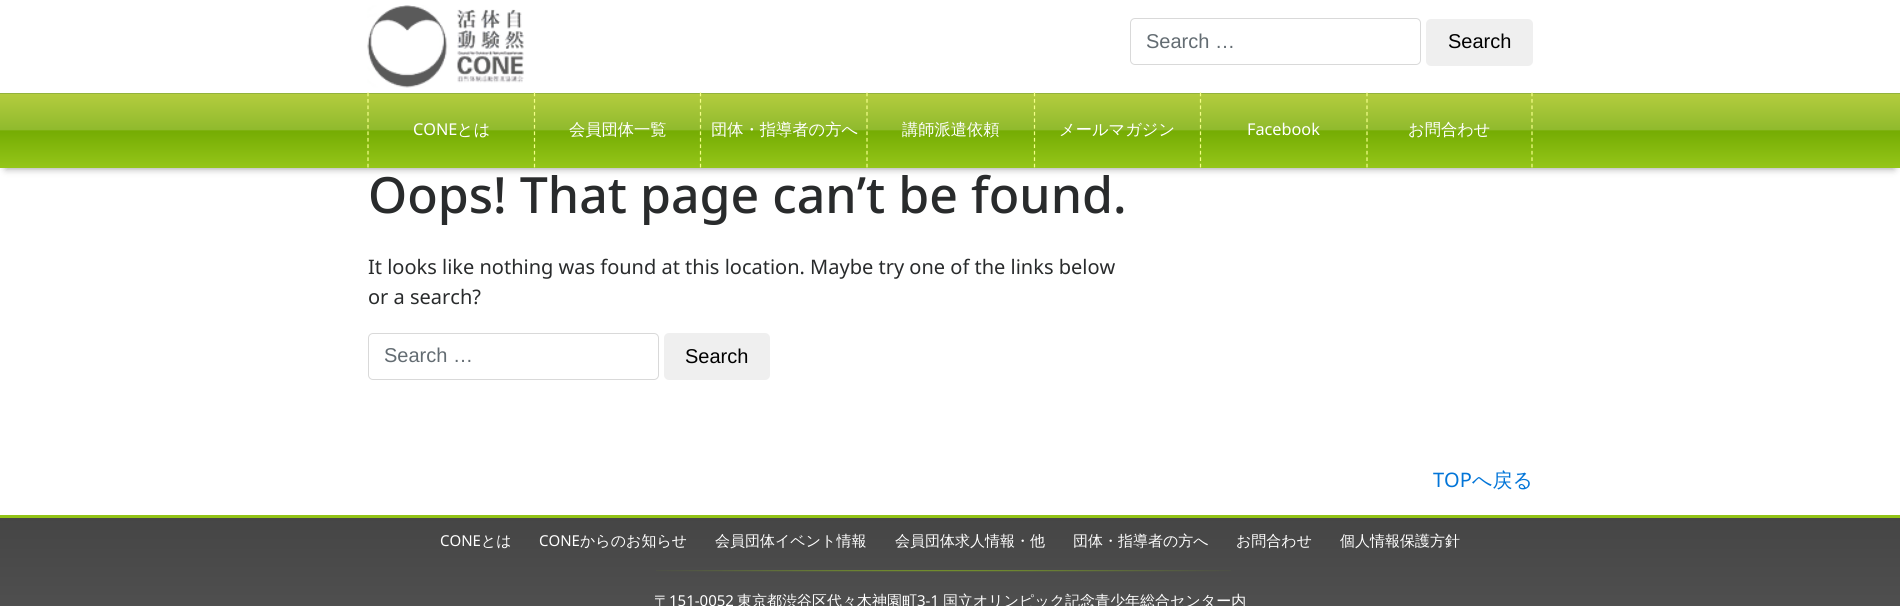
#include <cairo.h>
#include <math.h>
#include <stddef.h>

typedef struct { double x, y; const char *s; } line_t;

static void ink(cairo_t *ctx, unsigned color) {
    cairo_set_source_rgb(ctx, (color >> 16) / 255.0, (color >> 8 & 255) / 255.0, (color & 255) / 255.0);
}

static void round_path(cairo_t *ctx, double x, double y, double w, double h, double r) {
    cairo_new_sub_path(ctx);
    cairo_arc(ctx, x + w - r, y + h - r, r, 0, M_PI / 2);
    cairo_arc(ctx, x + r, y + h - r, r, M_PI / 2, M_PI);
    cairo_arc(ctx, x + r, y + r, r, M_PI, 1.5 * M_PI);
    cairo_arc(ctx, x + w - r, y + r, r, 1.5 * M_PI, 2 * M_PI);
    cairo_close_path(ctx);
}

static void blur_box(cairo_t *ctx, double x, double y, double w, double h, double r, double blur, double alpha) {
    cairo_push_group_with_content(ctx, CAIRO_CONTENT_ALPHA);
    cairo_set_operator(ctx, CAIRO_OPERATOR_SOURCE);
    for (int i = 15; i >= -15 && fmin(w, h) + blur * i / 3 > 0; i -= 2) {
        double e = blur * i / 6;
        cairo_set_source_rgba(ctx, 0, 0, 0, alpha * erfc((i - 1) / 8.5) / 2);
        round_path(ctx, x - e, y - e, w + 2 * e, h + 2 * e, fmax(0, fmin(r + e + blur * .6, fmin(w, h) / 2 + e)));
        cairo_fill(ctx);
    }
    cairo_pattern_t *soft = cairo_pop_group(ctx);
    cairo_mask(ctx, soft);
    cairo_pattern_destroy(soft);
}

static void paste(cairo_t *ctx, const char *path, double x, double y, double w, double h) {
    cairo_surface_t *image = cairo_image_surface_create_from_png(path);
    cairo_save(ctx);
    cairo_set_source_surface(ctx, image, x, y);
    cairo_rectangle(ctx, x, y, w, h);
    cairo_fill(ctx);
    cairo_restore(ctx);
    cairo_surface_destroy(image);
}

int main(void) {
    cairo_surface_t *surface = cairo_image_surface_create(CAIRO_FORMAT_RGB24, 1900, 606);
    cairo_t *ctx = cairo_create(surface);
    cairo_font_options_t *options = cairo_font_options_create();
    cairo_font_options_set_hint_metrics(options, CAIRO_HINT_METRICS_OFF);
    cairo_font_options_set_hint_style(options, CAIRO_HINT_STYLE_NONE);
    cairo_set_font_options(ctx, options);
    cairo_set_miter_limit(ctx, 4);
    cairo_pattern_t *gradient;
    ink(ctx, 0xFFFFFF);
    cairo_paint(ctx);
    paste(ctx, "media/1.png", 367, 5, 157, 83);
    round_path(ctx, 1130.5, 18.5, 290, 46, 4.5);
    ink(ctx, 0xD9D9D9);
    cairo_set_line_width(ctx, 1);
    cairo_stroke(ctx);
    cairo_select_font_face(ctx, "Liberation Sans", CAIRO_FONT_SLANT_NORMAL, CAIRO_FONT_WEIGHT_NORMAL);
    cairo_set_font_size(ctx, 20);
    ink(ctx, 0x636C72);
    cairo_move_to(ctx, 1146, 48);
    cairo_show_text(ctx, "Search …");
    ink(ctx, 0xEFEFEF);
    round_path(ctx, 1426, 19, 107, 47, 5);
    cairo_fill(ctx);
    ink(ctx, 0x000000);
    cairo_move_to(ctx, 1448, 48);
    cairo_show_text(ctx, "Search");
    ink(ctx, 0x8F8F8F);
    blur_box(ctx, 6, 105, 1888, 63, 0, 4, 1);
    gradient = cairo_pattern_create_linear(950, 92, 950, 168);
    cairo_pattern_add_color_stop_rgba(gradient, 0, 0.341, 0.506, 0.216, 1);
    cairo_pattern_add_color_stop_rgba(gradient, 0.03, 0.702, 0.8, 0.243, 1);
    cairo_pattern_add_color_stop_rgba(gradient, 0.5, 0.561, 0.729, 0.176, 1);
    cairo_pattern_add_color_stop_rgba(gradient, 0.51, 0.459, 0.675, 0.012, 1);
    cairo_pattern_add_color_stop_rgba(gradient, 1, 0.584, 0.776, 0.098, 1);
    cairo_set_source(ctx, gradient);
    cairo_pattern_destroy(gradient);
    cairo_rectangle(ctx, 0, 93, 1900, 75);
    cairo_fill(ctx);
    cairo_new_path(ctx);
    cairo_move_to(ctx, 368, 92.5);
    cairo_line_to(ctx, 368, 167.5);
    ink(ctx, 0xF4FF87);
    cairo_set_line_width(ctx, 1.2);
    cairo_set_dash(ctx, (double[]){3.75, 2.73}, 2, 0);
    cairo_stroke(ctx);
    cairo_select_font_face(ctx, "Noto Sans", CAIRO_FONT_SLANT_NORMAL, CAIRO_FONT_WEIGHT_NORMAL);
    cairo_set_font_size(ctx, 16.25);
    ink(ctx, 0xFFFFFF);
    cairo_move_to(ctx, 413, 135);
    cairo_show_text(ctx, "CONE");
    cairo_select_font_face(ctx, "WenQuanYi Zen Hei Medium", CAIRO_FONT_SLANT_NORMAL, CAIRO_FONT_WEIGHT_NORMAL);
    cairo_move_to(ctx, 457, 135);
    cairo_show_text(ctx, "とは");
    cairo_new_path(ctx);
    cairo_move_to(ctx, 534.5, 92.5);
    cairo_line_to(ctx, 534.5, 167.5);
    ink(ctx, 0xF4FF87);
    cairo_stroke(ctx);
    ink(ctx, 0xFFFFFF);
    cairo_move_to(ctx, 569, 135);
    cairo_show_text(ctx, "会員団体一覧");
    cairo_new_path(ctx);
    cairo_move_to(ctx, 700.5, 92.5);
    cairo_line_to(ctx, 700.5, 167.5);
    ink(ctx, 0xF4FF87);
    cairo_stroke(ctx);
    ink(ctx, 0xFFFFFF);
    cairo_move_to(ctx, 711, 135);
    cairo_show_text(ctx, "団体・指導者の方へ");
    cairo_new_path(ctx);
    cairo_move_to(ctx, 867, 92.5);
    cairo_line_to(ctx, 867, 167.5);
    ink(ctx, 0xF4FF87);
    cairo_stroke(ctx);
    ink(ctx, 0xFFFFFF);
    cairo_move_to(ctx, 902, 135);
    cairo_show_text(ctx, "講師派遣依頼");
    cairo_new_path(ctx);
    cairo_move_to(ctx, 1034.5, 92.5);
    cairo_line_to(ctx, 1034.5, 167.5);
    ink(ctx, 0xF4FF87);
    cairo_stroke(ctx);
    ink(ctx, 0xFFFFFF);
    cairo_move_to(ctx, 1059, 135);
    cairo_show_text(ctx, "メールマガジン");
    cairo_new_path(ctx);
    cairo_move_to(ctx, 1200.5, 92.5);
    cairo_line_to(ctx, 1200.5, 167.5);
    ink(ctx, 0xF4FF87);
    cairo_stroke(ctx);
    cairo_select_font_face(ctx, "Noto Sans", CAIRO_FONT_SLANT_NORMAL, CAIRO_FONT_WEIGHT_NORMAL);
    ink(ctx, 0xFFFFFF);
    cairo_move_to(ctx, 1247, 135);
    cairo_show_text(ctx, "Facebook");
    cairo_new_path(ctx);
    cairo_move_to(ctx, 1532, 92.5);
    cairo_line_to(ctx, 1532, 167.5);
    ink(ctx, 0xF4FF87);
    cairo_stroke(ctx);
    cairo_new_path(ctx);
    cairo_move_to(ctx, 1367, 92.5);
    cairo_line_to(ctx, 1367, 167.5);
    cairo_stroke(ctx);
    cairo_select_font_face(ctx, "WenQuanYi Zen Hei Medium", CAIRO_FONT_SLANT_NORMAL, CAIRO_FONT_WEIGHT_NORMAL);
    ink(ctx, 0xFFFFFF);
    cairo_move_to(ctx, 1408, 135);
    cairo_show_text(ctx, "お問合わせ");
    cairo_select_font_face(ctx, "Noto Sans Medium", CAIRO_FONT_SLANT_NORMAL, CAIRO_FONT_WEIGHT_NORMAL);
    cairo_set_font_size(ctx, 50);
    ink(ctx, 0x292B2C);
    cairo_move_to(ctx, 368, 213);
    cairo_show_text(ctx, "Oops! That page can’t be found.");
    cairo_select_font_face(ctx, "Noto Sans", CAIRO_FONT_SLANT_NORMAL, CAIRO_FONT_WEIGHT_NORMAL);
    cairo_set_font_size(ctx, 20);
    cairo_move_to(ctx, 368, 274);
    cairo_show_text(ctx, "It looks like nothing was found at this location. Maybe try one of the links below");
    cairo_move_to(ctx, 368, 304);
    cairo_show_text(ctx, "or a search?");
    round_path(ctx, 368.5, 333.5, 290, 46, 4.5);
    ink(ctx, 0xD9D9D9);
    cairo_set_line_width(ctx, 1);
    cairo_set_dash(ctx, NULL, 0, 0);
    cairo_stroke(ctx);
    cairo_select_font_face(ctx, "Liberation Sans", CAIRO_FONT_SLANT_NORMAL, CAIRO_FONT_WEIGHT_NORMAL);
    ink(ctx, 0x636C72);
    cairo_move_to(ctx, 384, 362);
    cairo_show_text(ctx, "Search …");
    ink(ctx, 0xEFEFEF);
    round_path(ctx, 664, 333, 106, 47, 5);
    cairo_fill(ctx);
    ink(ctx, 0x000000);
    cairo_move_to(ctx, 685, 363);
    cairo_show_text(ctx, "Search");
    cairo_select_font_face(ctx, "Noto Sans", CAIRO_FONT_SLANT_NORMAL, CAIRO_FONT_WEIGHT_NORMAL);
    ink(ctx, 0x0275D8);
    cairo_move_to(ctx, 1433, 487);
    cairo_show_text(ctx, "TOP");
    cairo_select_font_face(ctx, "WenQuanYi Zen Hei Medium", CAIRO_FONT_SLANT_NORMAL, CAIRO_FONT_WEIGHT_NORMAL);
    cairo_move_to(ctx, 1472, 487);
    cairo_show_text(ctx, "へ戻る");
    gradient = cairo_pattern_create_linear(950, 517, 950, 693);
    cairo_pattern_add_color_stop_rgba(gradient, 0, 0.271, 0.271, 0.271, 1);
    cairo_pattern_add_color_stop_rgba(gradient, 1, 0.345, 0.345, 0.345, 1);
    cairo_set_source(ctx, gradient);
    cairo_pattern_destroy(gradient);
    cairo_rectangle(ctx, 0, 518, 1900, 88);
    cairo_fill(ctx);
    ink(ctx, 0x92C316);
    cairo_rectangle(ctx, 0, 515, 1900, 3);
    cairo_fill(ctx);
    paste(ctx, "media/2.png", 656, 570, 575, 2);
    cairo_select_font_face(ctx, "Noto Sans", CAIRO_FONT_SLANT_NORMAL, CAIRO_FONT_WEIGHT_NORMAL);
    cairo_set_font_size(ctx, 15);
    ink(ctx, 0xFFFFFF);
    cairo_move_to(ctx, 440, 546);
    cairo_show_text(ctx, "CONE");
    cairo_select_font_face(ctx, "WenQuanYi Zen Hei Medium", CAIRO_FONT_SLANT_NORMAL, CAIRO_FONT_WEIGHT_NORMAL);
    cairo_move_to(ctx, 481, 546);
    cairo_show_text(ctx, "とは");
    cairo_select_font_face(ctx, "Noto Sans", CAIRO_FONT_SLANT_NORMAL, CAIRO_FONT_WEIGHT_NORMAL);
    cairo_move_to(ctx, 539, 546);
    cairo_show_text(ctx, "CONE");
    cairo_select_font_face(ctx, "WenQuanYi Zen Hei Medium", CAIRO_FONT_SLANT_NORMAL, CAIRO_FONT_WEIGHT_NORMAL);
    {
        static const line_t items[] = {
            {580, 546, "からのお知らせ"},
            {715, 546, "会員団体イベント情報"},
            {895, 546, "会員団体求人情報・他"},
            {1073, 546, "団体・指導者の方へ"},
            {1236, 546, "お問合わせ"},
            {1340, 546, "個人情報保護方針"},
            {654, 606, "〒"},
        };
        for (size_t i = 0; i < sizeof items / sizeof *items; i++) {
            cairo_move_to(ctx, items[i].x, items[i].y);
            cairo_show_text(ctx, items[i].s);
        }
    }
    cairo_select_font_face(ctx, "Noto Sans", CAIRO_FONT_SLANT_NORMAL, CAIRO_FONT_WEIGHT_NORMAL);
    cairo_move_to(ctx, 669, 606);
    cairo_show_text(ctx, "151-0052");
    cairo_select_font_face(ctx, "WenQuanYi Zen Hei Medium", CAIRO_FONT_SLANT_NORMAL, CAIRO_FONT_WEIGHT_NORMAL);
    cairo_move_to(ctx, 737, 606);
    cairo_show_text(ctx, "東京都渋谷区代々木神園町");
    cairo_select_font_face(ctx, "Noto Sans", CAIRO_FONT_SLANT_NORMAL, CAIRO_FONT_WEIGHT_NORMAL);
    cairo_move_to(ctx, 917, 606);
    cairo_show_text(ctx, "3-1");
    cairo_select_font_face(ctx, "WenQuanYi Zen Hei Medium", CAIRO_FONT_SLANT_NORMAL, CAIRO_FONT_WEIGHT_NORMAL);
    cairo_move_to(ctx, 943, 606);
    cairo_show_text(ctx, "国立オリンピック記念青少年総合センター内");
    cairo_surface_write_to_png(surface, "image.png");
    cairo_font_options_destroy(options);
    cairo_destroy(ctx);
    cairo_surface_destroy(surface);
    return 0;
}
